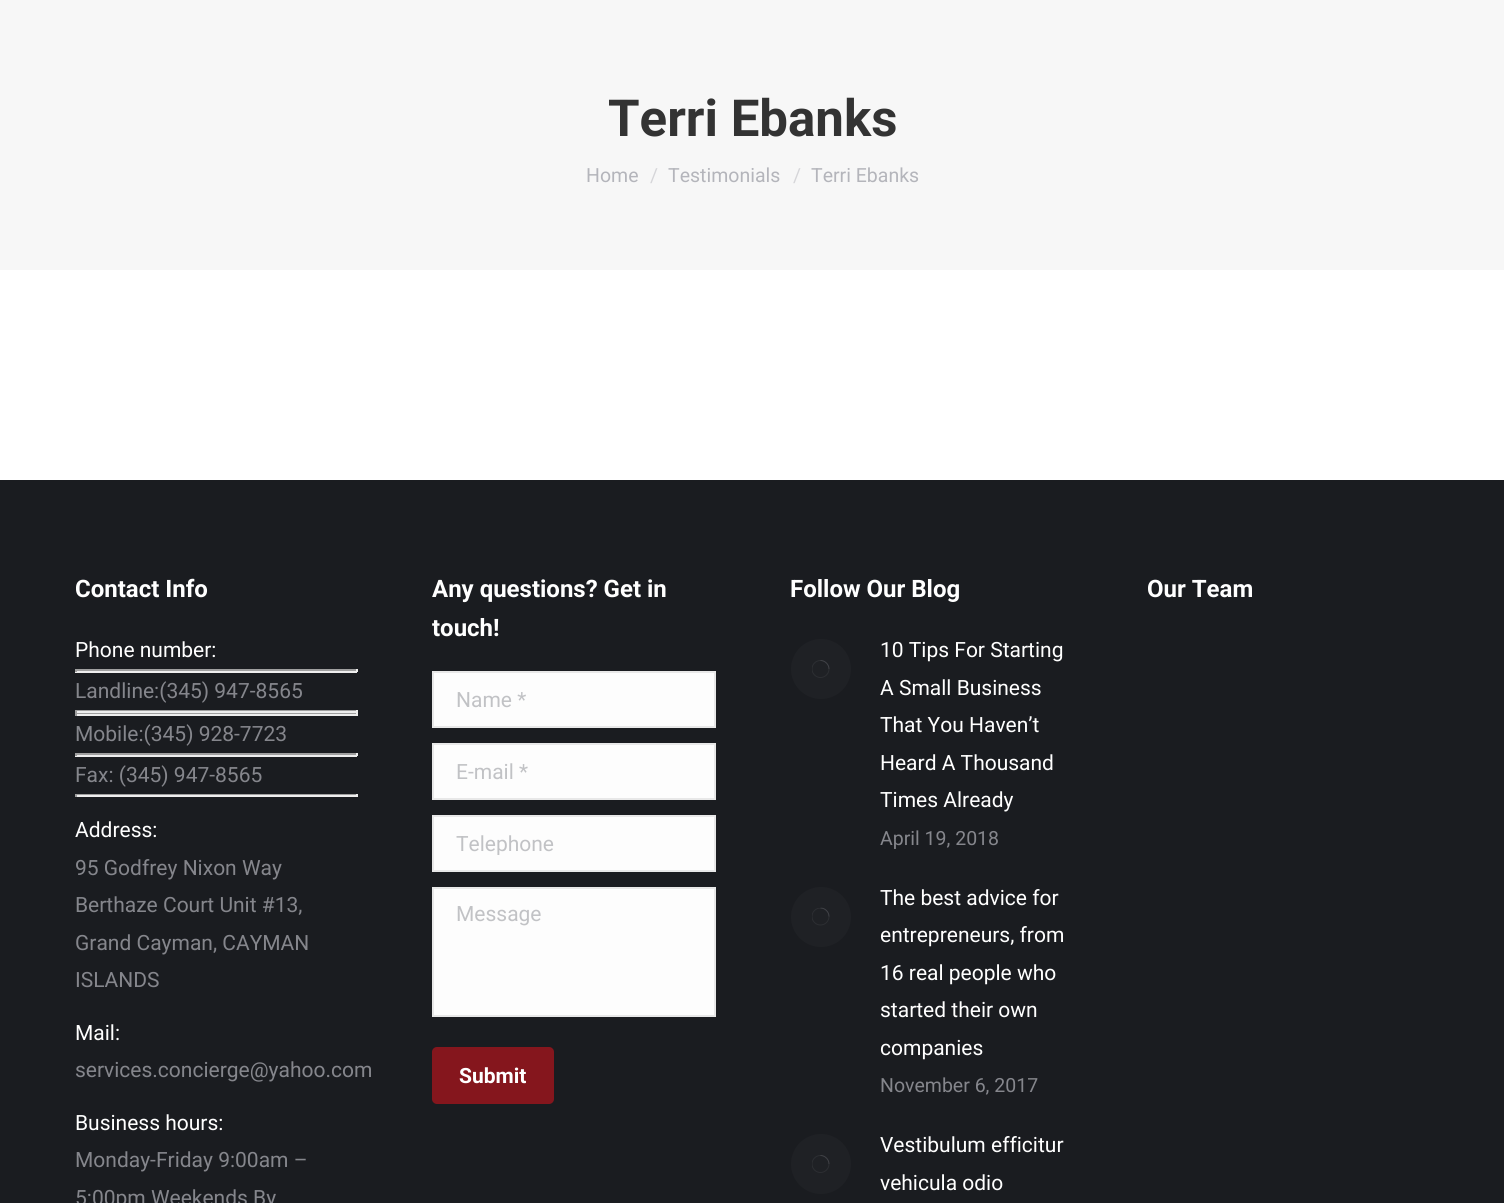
#include <cairo.h>
#include <math.h>
#include <stddef.h>

typedef struct { double x, y; const char *s; } line_t;
typedef struct { double x, y, w, h; unsigned color; } box_t;

static void ink(cairo_t *ctx, unsigned color) {
    cairo_set_source_rgb(ctx, (color >> 16) / 255.0, (color >> 8 & 255) / 255.0, (color & 255) / 255.0);
}

static void round_path(cairo_t *ctx, double x, double y, double w, double h, double r) {
    cairo_new_sub_path(ctx);
    cairo_arc(ctx, x + w - r, y + h - r, r, 0, M_PI / 2);
    cairo_arc(ctx, x + r, y + h - r, r, M_PI / 2, M_PI);
    cairo_arc(ctx, x + r, y + r, r, M_PI, 1.5 * M_PI);
    cairo_arc(ctx, x + w - r, y + r, r, 1.5 * M_PI, 2 * M_PI);
    cairo_close_path(ctx);
}

int main(void) {
    cairo_surface_t *surface = cairo_image_surface_create(CAIRO_FORMAT_RGB24, 1504, 1203);
    cairo_t *ctx = cairo_create(surface);
    cairo_font_options_t *options = cairo_font_options_create();
    cairo_font_options_set_hint_metrics(options, CAIRO_HINT_METRICS_OFF);
    cairo_font_options_set_hint_style(options, CAIRO_HINT_STYLE_NONE);
    cairo_set_font_options(ctx, options);
    cairo_set_miter_limit(ctx, 4);
    ink(ctx, 0xFFFFFF);
    cairo_paint(ctx);
    ink(ctx, 0xF7F7F7);
    cairo_rectangle(ctx, 0, 0, 1504, 270);
    cairo_fill(ctx);
    cairo_select_font_face(ctx, "Roboto", CAIRO_FONT_SLANT_NORMAL, CAIRO_FONT_WEIGHT_BOLD);
    cairo_set_font_size(ctx, 51);
    ink(ctx, 0x333333);
    cairo_move_to(ctx, 608, 136);
    cairo_show_text(ctx, "Terri Ebanks");
    cairo_select_font_face(ctx, "Roboto", CAIRO_FONT_SLANT_NORMAL, CAIRO_FONT_WEIGHT_NORMAL);
    cairo_set_font_size(ctx, 19.5);
    ink(ctx, 0xB4B5BB);
    cairo_move_to(ctx, 586, 182);
    cairo_show_text(ctx, "Home");
    ink(ctx, 0xD6D6D9);
    cairo_move_to(ctx, 650, 182);
    cairo_show_text(ctx, "/");
    ink(ctx, 0xB4B5BB);
    cairo_move_to(ctx, 668, 182);
    cairo_show_text(ctx, "Testimonials");
    ink(ctx, 0xD6D6D9);
    cairo_move_to(ctx, 793, 182);
    cairo_show_text(ctx, "/");
    ink(ctx, 0xB4B5BB);
    cairo_move_to(ctx, 811, 182);
    cairo_show_text(ctx, "Terri Ebanks");
    ink(ctx, 0x1A1C20);
    cairo_rectangle(ctx, 0, 480, 1504, 723);
    cairo_fill(ctx);
    cairo_select_font_face(ctx, "Roboto", CAIRO_FONT_SLANT_NORMAL, CAIRO_FONT_WEIGHT_BOLD);
    cairo_set_font_size(ctx, 24);
    ink(ctx, 0xFFFFFF);
    cairo_move_to(ctx, 75, 597);
    cairo_show_text(ctx, "Contact Info");
    cairo_select_font_face(ctx, "Roboto", CAIRO_FONT_SLANT_NORMAL, CAIRO_FONT_WEIGHT_NORMAL);
    cairo_set_font_size(ctx, 21);
    cairo_move_to(ctx, 75, 657);
    cairo_show_text(ctx, "Phone number:");
    {
        static const box_t items[] = {
            {75, 669, 282, 2, 0x9F9F9F},
            {356, 669, 2, 3, 0xEEEEEE},
            {75, 671, 282, 2, 0xEEEEEE},
            {75, 669, 2, 3, 0x9F9F9F},
        };
        for (size_t i = 0; i < sizeof items / sizeof *items; i++) {
            ink(ctx, items[i].color);
            cairo_rectangle(ctx, items[i].x, items[i].y, items[i].w, items[i].h);
            cairo_fill(ctx);
        }
    }
    ink(ctx, 0x85868C);
    cairo_move_to(ctx, 75, 698);
    cairo_show_text(ctx, "Landline:(345) 947-8565");
    {
        static const box_t items[] = {
            {75, 710, 282, 1, 0x9F9F9F},
            {356, 710, 2, 3, 0xEEEEEE},
            {75, 711, 282, 2, 0xEEEEEE},
            {75, 710, 2, 3, 0x9F9F9F},
            {75, 713, 282, 1, 0x9F9F9F},
            {356, 713, 2, 3, 0xEEEEEE},
            {75, 714, 282, 2, 0xEEEEEE},
            {75, 713, 2, 3, 0x9F9F9F},
        };
        for (size_t i = 0; i < sizeof items / sizeof *items; i++) {
            ink(ctx, items[i].color);
            cairo_rectangle(ctx, items[i].x, items[i].y, items[i].w, items[i].h);
            cairo_fill(ctx);
        }
    }
    ink(ctx, 0x85868C);
    cairo_move_to(ctx, 75, 741);
    cairo_show_text(ctx, "Mobile:(345) 928-7723");
    {
        static const box_t items[] = {
            {75, 753, 282, 2, 0x9F9F9F},
            {356, 753, 2, 3, 0xEEEEEE},
            {75, 755, 282, 2, 0xEEEEEE},
            {75, 753, 2, 3, 0x9F9F9F},
        };
        for (size_t i = 0; i < sizeof items / sizeof *items; i++) {
            ink(ctx, items[i].color);
            cairo_rectangle(ctx, items[i].x, items[i].y, items[i].w, items[i].h);
            cairo_fill(ctx);
        }
    }
    ink(ctx, 0x85868C);
    cairo_move_to(ctx, 75, 782);
    cairo_show_text(ctx, "Fax: (345) 947-8565");
    {
        static const box_t items[] = {
            {75, 794, 282, 1, 0x9F9F9F},
            {356, 794, 2, 3, 0xEEEEEE},
            {75, 795, 282, 2, 0xEEEEEE},
            {75, 794, 2, 3, 0x9F9F9F},
        };
        for (size_t i = 0; i < sizeof items / sizeof *items; i++) {
            ink(ctx, items[i].color);
            cairo_rectangle(ctx, items[i].x, items[i].y, items[i].w, items[i].h);
            cairo_fill(ctx);
        }
    }
    ink(ctx, 0xFFFFFF);
    cairo_move_to(ctx, 75, 837);
    cairo_show_text(ctx, "Address:");
    ink(ctx, 0x85868C);
    {
        static const line_t items[] = {
            {75, 875, "95 Godfrey Nixon Way"},
            {75, 912, "Berthaze Court Unit #13,"},
            {75, 950, "Grand Cayman, CAYMAN"},
            {75, 987, "ISLANDS"},
        };
        for (size_t i = 0; i < sizeof items / sizeof *items; i++) {
            cairo_move_to(ctx, items[i].x, items[i].y);
            cairo_show_text(ctx, items[i].s);
        }
    }
    ink(ctx, 0xFFFFFF);
    cairo_move_to(ctx, 75, 1040);
    cairo_show_text(ctx, "Mail:");
    ink(ctx, 0x85868C);
    cairo_move_to(ctx, 75, 1077);
    cairo_show_text(ctx, "services.concierge@yahoo.com");
    ink(ctx, 0xFFFFFF);
    cairo_move_to(ctx, 75, 1130);
    cairo_show_text(ctx, "Business hours:");
    ink(ctx, 0x85868C);
    cairo_move_to(ctx, 75, 1167);
    cairo_show_text(ctx, "Monday-Friday 9:00am –");
    cairo_move_to(ctx, 75, 1205);
    cairo_show_text(ctx, "5:00pm Weekends By");
    cairo_select_font_face(ctx, "Roboto", CAIRO_FONT_SLANT_NORMAL, CAIRO_FONT_WEIGHT_BOLD);
    cairo_set_font_size(ctx, 24);
    ink(ctx, 0xFFFFFF);
    cairo_move_to(ctx, 432, 597);
    cairo_show_text(ctx, "Any questions? Get in");
    cairo_move_to(ctx, 432, 636);
    cairo_show_text(ctx, "touch!");
    ink(ctx, 0xFDFDFD);
    cairo_rectangle(ctx, 433, 672, 282, 55);
    cairo_fill_preserve(ctx);
    ink(ctx, 0xE8E8E8);
    cairo_stroke(ctx);
    cairo_select_font_face(ctx, "Roboto", CAIRO_FONT_SLANT_NORMAL, CAIRO_FONT_WEIGHT_NORMAL);
    cairo_set_font_size(ctx, 21);
    ink(ctx, 0xC1C2C5);
    cairo_move_to(ctx, 456, 707);
    cairo_show_text(ctx, "Name *");
    ink(ctx, 0xFDFDFD);
    cairo_rectangle(ctx, 433, 744, 282, 55);
    cairo_fill_preserve(ctx);
    ink(ctx, 0xE8E8E8);
    cairo_stroke(ctx);
    ink(ctx, 0xC1C2C5);
    cairo_move_to(ctx, 456, 779);
    cairo_show_text(ctx, "E-mail *");
    ink(ctx, 0xFDFDFD);
    cairo_rectangle(ctx, 433, 816, 282, 55);
    cairo_fill_preserve(ctx);
    ink(ctx, 0xE8E8E8);
    cairo_stroke(ctx);
    cairo_save(ctx);
    cairo_rectangle(ctx, 456, 831, 236, 24);
    cairo_clip(ctx);
    ink(ctx, 0xC1C2C5);
    cairo_move_to(ctx, 456, 851);
    cairo_show_text(ctx, "Telephone");
    cairo_restore(ctx);
    ink(ctx, 0xFDFDFD);
    cairo_rectangle(ctx, 433, 888, 282, 128);
    cairo_fill_preserve(ctx);
    ink(ctx, 0xE8E8E8);
    cairo_stroke(ctx);
    ink(ctx, 0xC1C2C5);
    cairo_move_to(ctx, 456, 921);
    cairo_show_text(ctx, "Message");
    ink(ctx, 0x85161D);
    round_path(ctx, 432, 1047, 122, 57, 5);
    cairo_fill(ctx);
    cairo_select_font_face(ctx, "Roboto", CAIRO_FONT_SLANT_NORMAL, CAIRO_FONT_WEIGHT_BOLD);
    ink(ctx, 0xFFFFFF);
    cairo_move_to(ctx, 459, 1083);
    cairo_show_text(ctx, "Submit");
    cairo_set_font_size(ctx, 24);
    cairo_move_to(ctx, 790, 597);
    cairo_show_text(ctx, "Follow Our Blog");
    ink(ctx, 0x1F2125);
    cairo_new_path(ctx);
    cairo_arc(ctx, 821, 669, 30, 0, 2 * M_PI);
    cairo_fill(ctx);
    cairo_save(ctx);
    cairo_rectangle(ctx, 812, 660, 18, 18);
    cairo_clip(ctx);
    cairo_arc(ctx, 820.5, 669, 8.5, 0, 2 * M_PI);
    ink(ctx, 0x2D2F33);
    cairo_set_line_width(ctx, 0.9);
    cairo_stroke(ctx);
    cairo_restore(ctx);
    cairo_new_path(ctx);
    cairo_move_to(ctx, 829, 669);
    cairo_curve_to(ctx, 829, 664.5, 825, 660.5, 820.5, 660.5);
    cairo_set_source_rgba(ctx, 0.522, 0.525, 0.549, 0.25);
    cairo_set_line_width(ctx, 0.9);
    cairo_stroke(ctx);
    cairo_select_font_face(ctx, "Roboto", CAIRO_FONT_SLANT_NORMAL, CAIRO_FONT_WEIGHT_NORMAL);
    cairo_set_font_size(ctx, 21);
    ink(ctx, 0xFFFFFF);
    {
        static const line_t items[] = {
            {880, 657, "10 Tips For Starting"},
            {880, 695, "A Small Business"},
            {880, 732, "That You Haven’t"},
            {880, 770, "Heard A Thousand"},
            {880, 807, "Times Already"},
        };
        for (size_t i = 0; i < sizeof items / sizeof *items; i++) {
            cairo_move_to(ctx, items[i].x, items[i].y);
            cairo_show_text(ctx, items[i].s);
        }
    }
    cairo_set_font_size(ctx, 19.5);
    ink(ctx, 0x85868C);
    cairo_move_to(ctx, 880, 845);
    cairo_show_text(ctx, "April 19, 2018");
    ink(ctx, 0x1F2125);
    cairo_new_path(ctx);
    cairo_arc(ctx, 821, 917, 30, 0, 2 * M_PI);
    cairo_fill(ctx);
    cairo_save(ctx);
    cairo_rectangle(ctx, 812, 908, 18, 18);
    cairo_clip(ctx);
    cairo_arc(ctx, 820.5, 916.5, 8.5, 0, 2 * M_PI);
    ink(ctx, 0x2D2F33);
    cairo_stroke(ctx);
    cairo_restore(ctx);
    cairo_new_path(ctx);
    cairo_move_to(ctx, 829, 916.5);
    cairo_curve_to(ctx, 829, 912, 825, 908, 820.5, 908);
    cairo_set_source_rgba(ctx, 0.522, 0.525, 0.549, 0.25);
    cairo_stroke(ctx);
    cairo_set_font_size(ctx, 21);
    ink(ctx, 0xFFFFFF);
    {
        static const line_t items[] = {
            {880, 905, "The best advice for"},
            {880, 942, "entrepreneurs, from"},
            {880, 980, "16 real people who"},
            {880, 1017, "started their own"},
            {880, 1055, "companies"},
        };
        for (size_t i = 0; i < sizeof items / sizeof *items; i++) {
            cairo_move_to(ctx, items[i].x, items[i].y);
            cairo_show_text(ctx, items[i].s);
        }
    }
    cairo_set_font_size(ctx, 19.5);
    ink(ctx, 0x85868C);
    cairo_move_to(ctx, 880, 1092);
    cairo_show_text(ctx, "November 6, 2017");
    ink(ctx, 0x1F2125);
    cairo_new_path(ctx);
    cairo_arc(ctx, 821, 1164, 30, 0, 2 * M_PI);
    cairo_fill(ctx);
    cairo_save(ctx);
    cairo_rectangle(ctx, 812, 1155, 18, 18);
    cairo_clip(ctx);
    cairo_arc(ctx, 820.5, 1164, 8.5, 0, 2 * M_PI);
    ink(ctx, 0x2D2F33);
    cairo_stroke(ctx);
    cairo_restore(ctx);
    cairo_new_path(ctx);
    cairo_move_to(ctx, 829, 1164);
    cairo_curve_to(ctx, 829, 1159.5, 825, 1155.5, 820.5, 1155.5);
    cairo_set_source_rgba(ctx, 0.522, 0.525, 0.549, 0.25);
    cairo_stroke(ctx);
    cairo_set_font_size(ctx, 21);
    ink(ctx, 0xFFFFFF);
    cairo_move_to(ctx, 880, 1152);
    cairo_show_text(ctx, "Vestibulum efficitur");
    cairo_move_to(ctx, 880, 1190);
    cairo_show_text(ctx, "vehicula odio");
    cairo_select_font_face(ctx, "Roboto", CAIRO_FONT_SLANT_NORMAL, CAIRO_FONT_WEIGHT_BOLD);
    cairo_set_font_size(ctx, 24);
    cairo_move_to(ctx, 1147, 597);
    cairo_show_text(ctx, "Our Team");
    cairo_surface_write_to_png(surface, "image.png");
    cairo_font_options_destroy(options);
    cairo_destroy(ctx);
    cairo_surface_destroy(surface);
    return 0;
}
